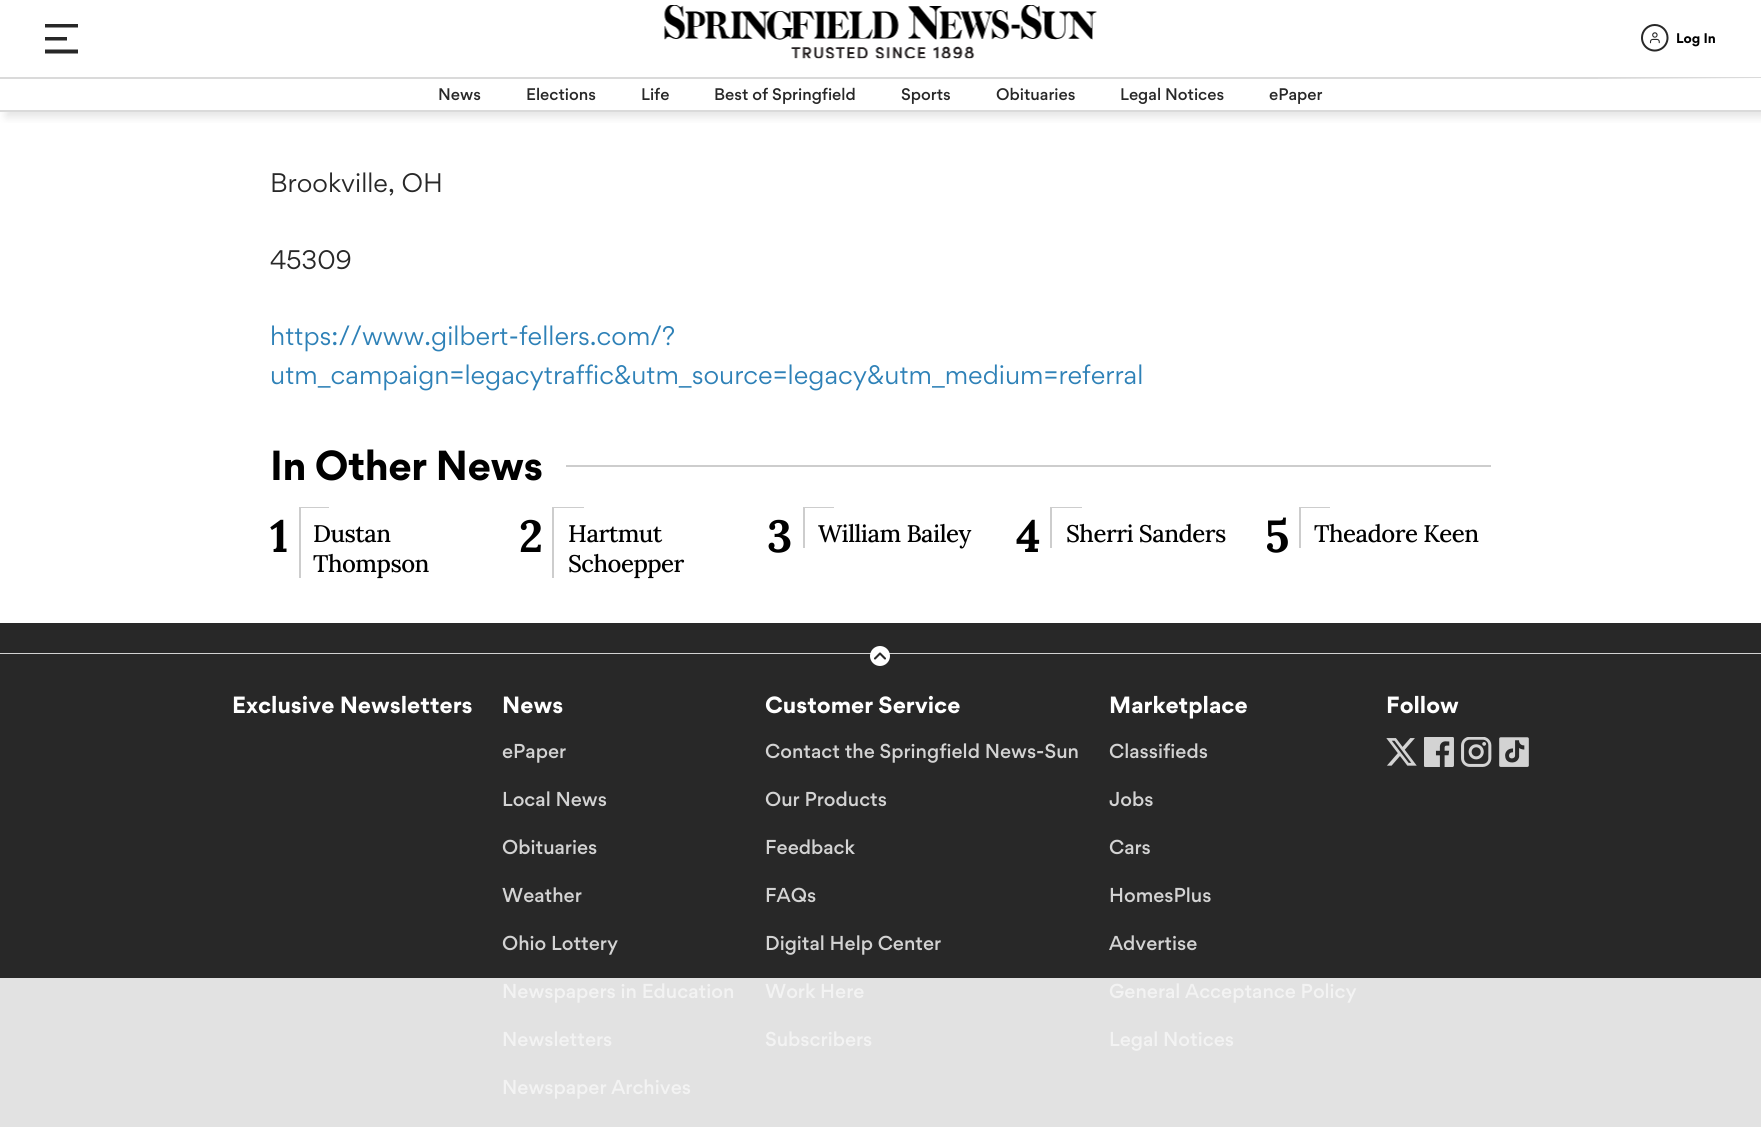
#include <cairo.h>
#include <math.h>
#include <stddef.h>

typedef struct { double x, y; const char *s; } line_t;
typedef struct { double x, y, w, h; unsigned color; } box_t;

static void ink(cairo_t *ctx, unsigned color) {
    cairo_set_source_rgb(ctx, (color >> 16) / 255.0, (color >> 8 & 255) / 255.0, (color & 255) / 255.0);
}

static void write_spaced(cairo_t *ctx, double x, double y, const char *s, double letter, double word) {
    cairo_move_to(ctx, x, y);
    while (*s) {
        char ch[5] = {0};
        int n = 0;
        do ch[n++] = *s++; while ((*s & 0xC0) == 0x80);
        cairo_show_text(ctx, ch);
        cairo_rel_move_to(ctx, letter + word * (*ch == ' '), 0);
    }
}

static void round_path(cairo_t *ctx, double x, double y, double w, double h, double r) {
    cairo_new_sub_path(ctx);
    cairo_arc(ctx, x + w - r, y + h - r, r, 0, M_PI / 2);
    cairo_arc(ctx, x + r, y + h - r, r, M_PI / 2, M_PI);
    cairo_arc(ctx, x + r, y + r, r, M_PI, 1.5 * M_PI);
    cairo_arc(ctx, x + w - r, y + r, r, 1.5 * M_PI, 2 * M_PI);
    cairo_close_path(ctx);
}

static void blur_box(cairo_t *ctx, double x, double y, double w, double h, double r, double blur, double alpha) {
    cairo_push_group_with_content(ctx, CAIRO_CONTENT_ALPHA);
    cairo_set_operator(ctx, CAIRO_OPERATOR_SOURCE);
    for (int i = 15; i >= -15 && fmin(w, h) + blur * i / 3 > 0; i -= 2) {
        double e = blur * i / 6;
        cairo_set_source_rgba(ctx, 0, 0, 0, alpha * erfc((i - 1) / 8.5) / 2);
        round_path(ctx, x - e, y - e, w + 2 * e, h + 2 * e, fmax(0, fmin(r + e + blur * .6, fmin(w, h) / 2 + e)));
        cairo_fill(ctx);
    }
    cairo_pattern_t *soft = cairo_pop_group(ctx);
    cairo_mask(ctx, soft);
    cairo_pattern_destroy(soft);
}

static void paste(cairo_t *ctx, const char *path, double x, double y, double w, double h) {
    cairo_surface_t *image = cairo_image_surface_create_from_png(path);
    cairo_save(ctx);
    cairo_set_source_surface(ctx, image, x, y);
    cairo_rectangle(ctx, x, y, w, h);
    cairo_fill(ctx);
    cairo_restore(ctx);
    cairo_surface_destroy(image);
}

int main(void) {
    cairo_surface_t *surface = cairo_image_surface_create(CAIRO_FORMAT_RGB24, 1761, 1127);
    cairo_t *ctx = cairo_create(surface);
    cairo_font_options_t *options = cairo_font_options_create();
    cairo_font_options_set_hint_metrics(options, CAIRO_HINT_METRICS_OFF);
    cairo_font_options_set_hint_style(options, CAIRO_HINT_STYLE_NONE);
    cairo_set_font_options(ctx, options);
    cairo_set_miter_limit(ctx, 4);
    cairo_pattern_t *gradient;
    ink(ctx, 0xFFFFFF);
    cairo_paint(ctx);
    ink(ctx, 0x282828);
    cairo_new_path(ctx);
    cairo_move_to(ctx, 45, 24);
    cairo_line_to(ctx, 78, 24);
    cairo_line_to(ctx, 78, 27.5);
    cairo_line_to(ctx, 45, 27.5);
    cairo_close_path(ctx);
    cairo_move_to(ctx, 45, 37);
    cairo_line_to(ctx, 67, 37);
    cairo_line_to(ctx, 67, 40.5);
    cairo_line_to(ctx, 45, 40.5);
    cairo_close_path(ctx);
    cairo_move_to(ctx, 45, 49.5);
    cairo_line_to(ctx, 78, 49.5);
    cairo_line_to(ctx, 78, 53.5);
    cairo_line_to(ctx, 45, 53.5);
    cairo_close_path(ctx);
    cairo_fill(ctx);
    paste(ctx, "media/1.png", 664, 5, 433, 54);
    paste(ctx, "media/2.png", 1641, 24, 28, 28);
    cairo_select_font_face(ctx, "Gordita", CAIRO_FONT_SLANT_NORMAL, CAIRO_FONT_WEIGHT_BOLD);
    cairo_set_font_size(ctx, 12.5);
    ink(ctx, 0x000000);
    cairo_move_to(ctx, 1676, 43);
    cairo_show_text(ctx, "Log In");
    cairo_save(ctx);
    cairo_rectangle(ctx, 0, 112, 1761, 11);
    cairo_clip(ctx);
    ink(ctx, 0x858585);
    blur_box(ctx, 6, 83, 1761, 34, 0, 4.5, 0.22);
    cairo_restore(ctx);
    ink(ctx, 0xDADADA);
    cairo_rectangle(ctx, 0, 77, 1761, 2);
    cairo_fill(ctx);
    cairo_rectangle(ctx, 0, 110, 1761, 2);
    cairo_fill(ctx);
    gradient = cairo_pattern_create_linear(1761, 94, 1586, 94);
    cairo_pattern_add_color_stop_rgba(gradient, 0, 1, 1, 1, 1);
    cairo_pattern_add_color_stop_rgba(gradient, 1, 1, 1, 1, 0);
    cairo_set_source(ctx, gradient);
    cairo_pattern_destroy(gradient);
    cairo_rectangle(ctx, 1598, 78, 163, 1);
    cairo_fill(ctx);
    cairo_select_font_face(ctx, "Gordita Medium", CAIRO_FONT_SLANT_NORMAL, CAIRO_FONT_WEIGHT_NORMAL);
    cairo_set_font_size(ctx, 15);
    ink(ctx, 0x282828);
    {
        static const line_t items[] = {
            {438, 100, "News"},
            {526, 100, "Elections"},
            {641, 100, "Life"},
            {714, 100, "Best of Springfield"},
            {901, 100, "Sports"},
            {996, 100, "Obituaries"},
            {1120, 100, "Legal Notices"},
            {1269, 100, "ePaper"},
        };
        for (size_t i = 0; i < sizeof items / sizeof *items; i++) {
            cairo_move_to(ctx, items[i].x, items[i].y);
            cairo_show_text(ctx, items[i].s);
        }
    }
    cairo_select_font_face(ctx, "Gordita", CAIRO_FONT_SLANT_NORMAL, CAIRO_FONT_WEIGHT_NORMAL);
    cairo_set_font_size(ctx, 24);
    cairo_move_to(ctx, 270, 192);
    cairo_show_text(ctx, "Brookville, OH");
    cairo_move_to(ctx, 270, 269);
    cairo_show_text(ctx, "45309");
    ink(ctx, 0x2E81B7);
    cairo_move_to(ctx, 270, 345);
    cairo_show_text(ctx, "https://www.gilbert-fellers.com/?");
    cairo_move_to(ctx, 270, 384);
    cairo_show_text(ctx, "utm_campaign=legacytraffic&utm_source=legacy&utm_medium=referral");
    cairo_select_font_face(ctx, "Gordita", CAIRO_FONT_SLANT_NORMAL, CAIRO_FONT_WEIGHT_BOLD);
    cairo_set_font_size(ctx, 37.5);
    ink(ctx, 0x000000);
    write_spaced(ctx, 270, 480, "In Other News", -0.5, 0);
    {
        static const box_t items[] = {
            {566, 465, 925, 2, 0xCDCDCD},
            {299, 507, 2, 71, 0xCDCDCD},
            {299, 507, 30, 1, 0xCDCDCD},
        };
        for (size_t i = 0; i < sizeof items / sizeof *items; i++) {
            ink(ctx, items[i].color);
            cairo_rectangle(ctx, items[i].x, items[i].y, items[i].w, items[i].h);
            cairo_fill(ctx);
        }
    }
    cairo_select_font_face(ctx, "Lora", CAIRO_FONT_SLANT_NORMAL, CAIRO_FONT_WEIGHT_BOLD);
    cairo_set_font_size(ctx, 45);
    ink(ctx, 0x000000);
    write_spaced(ctx, 270, 552, "1", -1, 0);
    cairo_select_font_face(ctx, "Lora Medium", CAIRO_FONT_SLANT_NORMAL, CAIRO_FONT_WEIGHT_NORMAL);
    cairo_set_font_size(ctx, 24);
    write_spaced(ctx, 313, 542, "Dustan", -0.5, 0);
    write_spaced(ctx, 313, 572, "Thompson", -0.5, 0);
    ink(ctx, 0xCDCDCD);
    cairo_rectangle(ctx, 554, 507, 30, 1);
    cairo_fill(ctx);
    cairo_select_font_face(ctx, "Lora", CAIRO_FONT_SLANT_NORMAL, CAIRO_FONT_WEIGHT_BOLD);
    cairo_set_font_size(ctx, 45);
    ink(ctx, 0x000000);
    write_spaced(ctx, 519, 552, "2", -1, 0);
    ink(ctx, 0xCDCDCD);
    cairo_rectangle(ctx, 552, 507, 2, 71);
    cairo_fill(ctx);
    cairo_select_font_face(ctx, "Lora Medium", CAIRO_FONT_SLANT_NORMAL, CAIRO_FONT_WEIGHT_NORMAL);
    cairo_set_font_size(ctx, 24);
    ink(ctx, 0x000000);
    write_spaced(ctx, 568, 542, "Hartmut", -0.5, 0);
    write_spaced(ctx, 568, 572, "Schoepper", -0.5, 0);
    ink(ctx, 0xCDCDCD);
    cairo_rectangle(ctx, 803, 507, 2, 41);
    cairo_fill(ctx);
    cairo_rectangle(ctx, 804, 507, 30, 1);
    cairo_fill(ctx);
    cairo_select_font_face(ctx, "Lora", CAIRO_FONT_SLANT_NORMAL, CAIRO_FONT_WEIGHT_BOLD);
    cairo_set_font_size(ctx, 45);
    ink(ctx, 0x000000);
    write_spaced(ctx, 767, 552, "3", -1, 0);
    cairo_select_font_face(ctx, "Lora Medium", CAIRO_FONT_SLANT_NORMAL, CAIRO_FONT_WEIGHT_NORMAL);
    cairo_set_font_size(ctx, 24);
    write_spaced(ctx, 818, 542, "William Bailey", -0.5, 0);
    ink(ctx, 0xCDCDCD);
    cairo_rectangle(ctx, 1052, 507, 30, 1);
    cairo_fill(ctx);
    cairo_select_font_face(ctx, "Lora", CAIRO_FONT_SLANT_NORMAL, CAIRO_FONT_WEIGHT_BOLD);
    cairo_set_font_size(ctx, 45);
    ink(ctx, 0x000000);
    write_spaced(ctx, 1016, 552, "4", -1, 0);
    ink(ctx, 0xCDCDCD);
    cairo_rectangle(ctx, 1050, 507, 2, 41);
    cairo_fill(ctx);
    cairo_select_font_face(ctx, "Lora Medium", CAIRO_FONT_SLANT_NORMAL, CAIRO_FONT_WEIGHT_NORMAL);
    cairo_set_font_size(ctx, 24);
    ink(ctx, 0x000000);
    write_spaced(ctx, 1066, 542, "Sherri Sanders", -0.5, 0);
    ink(ctx, 0xCDCDCD);
    cairo_rectangle(ctx, 1299, 507, 2, 41);
    cairo_fill(ctx);
    cairo_rectangle(ctx, 1300, 507, 30, 1);
    cairo_fill(ctx);
    cairo_select_font_face(ctx, "Lora", CAIRO_FONT_SLANT_NORMAL, CAIRO_FONT_WEIGHT_BOLD);
    cairo_set_font_size(ctx, 45);
    ink(ctx, 0x000000);
    write_spaced(ctx, 1265, 552, "5", -1, 0);
    cairo_select_font_face(ctx, "Lora Medium", CAIRO_FONT_SLANT_NORMAL, CAIRO_FONT_WEIGHT_NORMAL);
    cairo_set_font_size(ctx, 24);
    write_spaced(ctx, 1314, 542, "Theadore Keen", -0.5, 0);
    {
        static const box_t items[] = {
            {0, 623, 1761, 30, 0x282828},
            {0, 653, 1761, 1, 0xD3D3D3},
            {0, 654, 1761, 324, 0x282828},
        };
        for (size_t i = 0; i < sizeof items / sizeof *items; i++) {
            ink(ctx, items[i].color);
            cairo_rectangle(ctx, items[i].x, items[i].y, items[i].w, items[i].h);
            cairo_fill(ctx);
        }
    }
    ink(ctx, 0xFFFFFF);
    cairo_new_path(ctx);
    cairo_arc(ctx, 880, 656, 10, 0, 2 * M_PI);
    cairo_fill(ctx);
    cairo_new_path(ctx);
    cairo_move_to(ctx, 885, 658.5);
    cairo_line_to(ctx, 880, 653.5);
    cairo_line_to(ctx, 875, 658.5);
    ink(ctx, 0x282828);
    cairo_set_line_width(ctx, 2.1);
    cairo_set_line_cap(ctx, CAIRO_LINE_CAP_ROUND);
    cairo_set_line_join(ctx, CAIRO_LINE_JOIN_ROUND);
    cairo_stroke(ctx);
    ink(ctx, 0xE2E2E2);
    cairo_rectangle(ctx, 0, 978, 1761, 149);
    cairo_fill(ctx);
    cairo_select_font_face(ctx, "Gordita", CAIRO_FONT_SLANT_NORMAL, CAIRO_FONT_WEIGHT_BOLD);
    cairo_set_font_size(ctx, 21);
    ink(ctx, 0xFFFFFF);
    cairo_move_to(ctx, 232, 713);
    cairo_show_text(ctx, "Exclusive Newsletters");
    cairo_move_to(ctx, 502, 713);
    cairo_show_text(ctx, "News");
    cairo_select_font_face(ctx, "Gordita Medium", CAIRO_FONT_SLANT_NORMAL, CAIRO_FONT_WEIGHT_NORMAL);
    cairo_set_font_size(ctx, 18);
    ink(ctx, 0xD3D3D3);
    {
        static const line_t items[] = {
            {502, 758, "ePaper"},
            {502, 806, "Local News"},
            {502, 854, "Obituaries"},
            {502, 902, "Weather"},
            {502, 950, "Ohio Lottery"},
        };
        for (size_t i = 0; i < sizeof items / sizeof *items; i++) {
            cairo_move_to(ctx, items[i].x, items[i].y);
            cairo_show_text(ctx, items[i].s);
        }
    }
    ink(ctx, 0xF3F3F3);
    {
        static const line_t items[] = {
            {502, 998, "Newspapers in Education"},
            {502, 1046, "Newsletters"},
            {502, 1094, "Newspaper Archives"},
        };
        for (size_t i = 0; i < sizeof items / sizeof *items; i++) {
            cairo_move_to(ctx, items[i].x, items[i].y);
            cairo_show_text(ctx, items[i].s);
        }
    }
    cairo_select_font_face(ctx, "Gordita", CAIRO_FONT_SLANT_NORMAL, CAIRO_FONT_WEIGHT_BOLD);
    cairo_set_font_size(ctx, 21);
    ink(ctx, 0xFFFFFF);
    cairo_move_to(ctx, 765, 713);
    cairo_show_text(ctx, "Customer Service");
    cairo_select_font_face(ctx, "Gordita Medium", CAIRO_FONT_SLANT_NORMAL, CAIRO_FONT_WEIGHT_NORMAL);
    cairo_set_font_size(ctx, 18);
    ink(ctx, 0xD3D3D3);
    {
        static const line_t items[] = {
            {765, 758, "Contact the Springfield News-Sun"},
            {765, 806, "Our Products"},
            {765, 854, "Feedback"},
            {765, 902, "FAQs"},
            {765, 950, "Digital Help Center"},
        };
        for (size_t i = 0; i < sizeof items / sizeof *items; i++) {
            cairo_move_to(ctx, items[i].x, items[i].y);
            cairo_show_text(ctx, items[i].s);
        }
    }
    ink(ctx, 0xF3F3F3);
    cairo_move_to(ctx, 765, 998);
    cairo_show_text(ctx, "Work Here");
    cairo_move_to(ctx, 765, 1046);
    cairo_show_text(ctx, "Subscribers");
    cairo_select_font_face(ctx, "Gordita", CAIRO_FONT_SLANT_NORMAL, CAIRO_FONT_WEIGHT_BOLD);
    cairo_set_font_size(ctx, 21);
    ink(ctx, 0xFFFFFF);
    cairo_move_to(ctx, 1109, 713);
    cairo_show_text(ctx, "Marketplace");
    cairo_select_font_face(ctx, "Gordita Medium", CAIRO_FONT_SLANT_NORMAL, CAIRO_FONT_WEIGHT_NORMAL);
    cairo_set_font_size(ctx, 18);
    ink(ctx, 0xD3D3D3);
    {
        static const line_t items[] = {
            {1109, 758, "Classifieds"},
            {1109, 806, "Jobs"},
            {1109, 854, "Cars"},
            {1109, 902, "HomesPlus"},
            {1109, 950, "Advertise"},
        };
        for (size_t i = 0; i < sizeof items / sizeof *items; i++) {
            cairo_move_to(ctx, items[i].x, items[i].y);
            cairo_show_text(ctx, items[i].s);
        }
    }
    ink(ctx, 0xF3F3F3);
    cairo_move_to(ctx, 1109, 998);
    cairo_show_text(ctx, "General Acceptance Policy");
    cairo_move_to(ctx, 1109, 1046);
    cairo_show_text(ctx, "Legal Notices");
    cairo_select_font_face(ctx, "Gordita", CAIRO_FONT_SLANT_NORMAL, CAIRO_FONT_WEIGHT_BOLD);
    cairo_set_font_size(ctx, 21);
    ink(ctx, 0xFFFFFF);
    cairo_move_to(ctx, 1386, 713);
    cairo_show_text(ctx, "Follow");
    paste(ctx, "media/3.png", 1386, 738, 31, 28);
    paste(ctx, "media/4.png", 1424, 737, 30, 30);
    paste(ctx, "media/5.png", 1461, 737, 31, 30);
    paste(ctx, "media/6.png", 1499, 737, 30, 30);
    cairo_surface_write_to_png(surface, "image.png");
    cairo_font_options_destroy(options);
    cairo_destroy(ctx);
    cairo_surface_destroy(surface);
    return 0;
}
